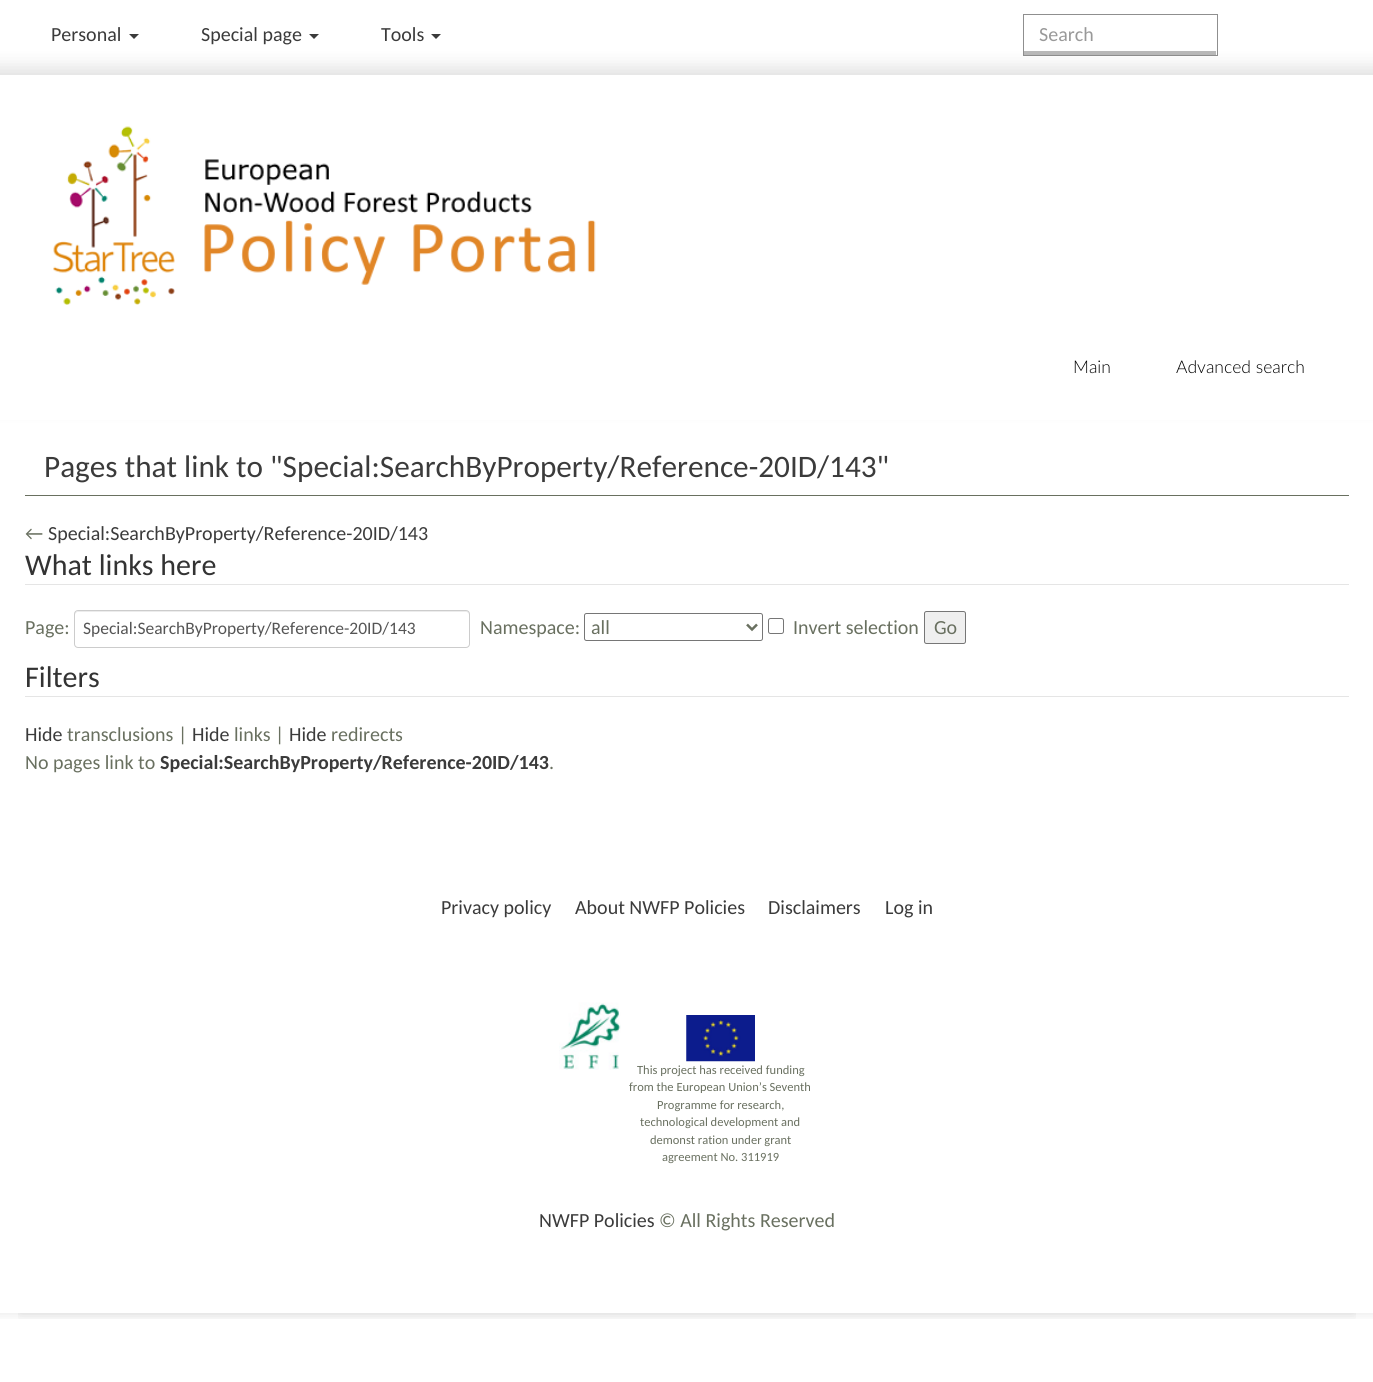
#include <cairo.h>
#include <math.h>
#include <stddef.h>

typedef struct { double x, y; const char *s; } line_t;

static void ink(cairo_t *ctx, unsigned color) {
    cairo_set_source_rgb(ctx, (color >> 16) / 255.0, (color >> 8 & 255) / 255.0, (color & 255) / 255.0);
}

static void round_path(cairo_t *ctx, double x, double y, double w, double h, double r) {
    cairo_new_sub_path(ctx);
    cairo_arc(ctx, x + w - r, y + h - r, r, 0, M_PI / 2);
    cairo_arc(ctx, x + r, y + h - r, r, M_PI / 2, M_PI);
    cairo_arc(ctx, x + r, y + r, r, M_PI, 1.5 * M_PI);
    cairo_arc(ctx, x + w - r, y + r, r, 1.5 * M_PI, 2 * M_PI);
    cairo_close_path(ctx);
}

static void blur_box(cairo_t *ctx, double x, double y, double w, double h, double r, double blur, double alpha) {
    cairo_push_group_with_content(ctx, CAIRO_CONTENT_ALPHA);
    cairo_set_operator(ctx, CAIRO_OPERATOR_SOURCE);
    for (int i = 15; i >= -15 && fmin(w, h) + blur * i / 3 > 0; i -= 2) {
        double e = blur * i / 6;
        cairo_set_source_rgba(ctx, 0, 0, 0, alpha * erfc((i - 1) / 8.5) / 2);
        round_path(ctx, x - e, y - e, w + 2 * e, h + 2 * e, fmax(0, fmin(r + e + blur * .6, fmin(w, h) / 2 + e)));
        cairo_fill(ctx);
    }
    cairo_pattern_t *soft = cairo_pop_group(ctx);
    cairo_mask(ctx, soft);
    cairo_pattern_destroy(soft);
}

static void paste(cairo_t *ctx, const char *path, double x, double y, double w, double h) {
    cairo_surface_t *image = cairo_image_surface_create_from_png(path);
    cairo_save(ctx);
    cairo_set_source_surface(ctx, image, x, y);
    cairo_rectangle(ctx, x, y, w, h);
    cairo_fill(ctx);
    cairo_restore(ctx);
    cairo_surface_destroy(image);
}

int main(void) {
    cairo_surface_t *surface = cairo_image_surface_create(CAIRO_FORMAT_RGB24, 1373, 1382);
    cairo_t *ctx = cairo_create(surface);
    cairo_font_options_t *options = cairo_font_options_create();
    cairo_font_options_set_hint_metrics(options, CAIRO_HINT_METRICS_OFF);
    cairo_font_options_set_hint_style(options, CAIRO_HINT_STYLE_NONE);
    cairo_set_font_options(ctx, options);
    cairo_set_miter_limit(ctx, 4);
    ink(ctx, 0xFFFFFF);
    cairo_paint(ctx);
    cairo_select_font_face(ctx, "Carlito", CAIRO_FONT_SLANT_NORMAL, CAIRO_FONT_WEIGHT_NORMAL);
    cairo_set_font_size(ctx, 20);
    ink(ctx, 0x3B3B3B);
    cairo_move_to(ctx, 51, 41);
    cairo_show_text(ctx, "Personal");
    cairo_new_path(ctx);
    cairo_move_to(ctx, 129, 34);
    cairo_line_to(ctx, 139, 34);
    cairo_line_to(ctx, 134, 39);
    cairo_close_path(ctx);
    cairo_fill(ctx);
    cairo_move_to(ctx, 201, 41);
    cairo_show_text(ctx, "Special page");
    cairo_new_path(ctx);
    cairo_move_to(ctx, 309, 34);
    cairo_line_to(ctx, 319, 34);
    cairo_line_to(ctx, 314, 39);
    cairo_close_path(ctx);
    cairo_fill(ctx);
    cairo_move_to(ctx, 381, 41);
    cairo_show_text(ctx, "Tools");
    cairo_new_path(ctx);
    cairo_move_to(ctx, 431, 34);
    cairo_line_to(ctx, 441, 34);
    cairo_line_to(ctx, 436, 39);
    cairo_close_path(ctx);
    cairo_fill(ctx);
    ink(ctx, 0xB9B9B9);
    cairo_rectangle(ctx, 1024, 51, 192, 4);
    cairo_fill(ctx);
    cairo_rectangle(ctx, 1023.5, 14.5, 194, 41);
    ink(ctx, 0x8F8F8F);
    cairo_set_line_width(ctx, 1);
    cairo_stroke(ctx);
    ink(ctx, 0x999999);
    cairo_move_to(ctx, 1039, 41);
    cairo_show_text(ctx, "Search");
    ink(ctx, 0x000000);
    blur_box(ctx, -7, 68, 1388, 338, 0, 9.5, 0.13);
    ink(ctx, 0xFFFFFF);
    cairo_rectangle(ctx, 0, 75, 1373, 313);
    cairo_fill(ctx);
    paste(ctx, "media/1.png", 53, 126, 543, 179);
    cairo_select_font_face(ctx, "Lato Light", CAIRO_FONT_SLANT_NORMAL, CAIRO_FONT_WEIGHT_NORMAL);
    cairo_set_font_size(ctx, 17.5);
    ink(ctx, 0x000000);
    cairo_move_to(ctx, 1073, 373);
    cairo_show_text(ctx, "Main");
    cairo_move_to(ctx, 1176, 373);
    cairo_show_text(ctx, "Advanced search");
    ink(ctx, 0xFFFFFF);
    cairo_new_path(ctx);
    cairo_move_to(ctx, 0, 388);
    cairo_line_to(ctx, 0, 399);
    cairo_line_to(ctx, 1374, 399);
    cairo_line_to(ctx, 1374, 829);
    cairo_line_to(ctx, 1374, 388);
    cairo_close_path(ctx);
    cairo_fill(ctx);
    cairo_rectangle(ctx, 0, 399, 1373, 21);
    cairo_fill(ctx);
    ink(ctx, 0x697060);
    cairo_rectangle(ctx, 25, 495, 1324, 1);
    cairo_fill(ctx);
    cairo_select_font_face(ctx, "Carlito", CAIRO_FONT_SLANT_NORMAL, CAIRO_FONT_WEIGHT_NORMAL);
    cairo_set_font_size(ctx, 31.25);
    ink(ctx, 0x3B3B3B);
    cairo_move_to(ctx, 44, 477);
    cairo_show_text(ctx, "Pages that link to \"Special:SearchByProperty/Reference-20ID/143\"");
    cairo_set_font_size(ctx, 20);
    ink(ctx, 0x697060);
    cairo_move_to(ctx, 25, 540);
    cairo_show_text(ctx, "←");
    ink(ctx, 0x3B3B3B);
    cairo_move_to(ctx, 48, 540);
    cairo_show_text(ctx, "Special:SearchByProperty/Reference-20ID/143");
    ink(ctx, 0xE5E5E5);
    cairo_rectangle(ctx, 25, 584, 1324, 1);
    cairo_fill(ctx);
    cairo_set_font_size(ctx, 30);
    ink(ctx, 0x333333);
    cairo_move_to(ctx, 25, 575);
    cairo_show_text(ctx, "What links here");
    cairo_set_font_size(ctx, 20);
    ink(ctx, 0x697060);
    cairo_move_to(ctx, 25, 634);
    cairo_show_text(ctx, "Page:");
    ink(ctx, 0xECECEC);
    cairo_new_path(ctx);
    cairo_move_to(ctx, 78, 612);
    cairo_line_to(ctx, 466, 612);
    cairo_curve_to(ctx, 468, 612, 469, 614, 469, 615);
    cairo_curve_to(ctx, 469, 613, 469, 611, 466, 611);
    cairo_line_to(ctx, 78, 611);
    cairo_line_to(ctx, 75, 612);
    cairo_line_to(ctx, 75, 615);
    cairo_curve_to(ctx, 75, 614, 76, 612, 78, 612);
    cairo_close_path(ctx);
    cairo_fill(ctx);
    round_path(ctx, 74.5, 610.5, 395, 37, 3.5);
    ink(ctx, 0xCCCCCC);
    cairo_stroke(ctx);
    cairo_set_font_size(ctx, 17.5);
    ink(ctx, 0x555555);
    cairo_move_to(ctx, 83, 634);
    cairo_show_text(ctx, "Special:SearchByProperty/Reference-20ID/143");
    cairo_set_font_size(ctx, 20);
    ink(ctx, 0x697060);
    cairo_move_to(ctx, 480, 634);
    cairo_show_text(ctx, "Namespace:");
    round_path(ctx, 584.5, 613.5, 178, 27, 2);
    ink(ctx, 0x767676);
    cairo_stroke(ctx);
    cairo_new_path(ctx);
    cairo_move_to(ctx, 747, 624.5);
    cairo_line_to(ctx, 752, 629.5);
    cairo_line_to(ctx, 757, 624.5);
    ink(ctx, 0x697060);
    cairo_set_line_width(ctx, 2.5);
    cairo_stroke(ctx);
    cairo_move_to(ctx, 591, 634);
    cairo_show_text(ctx, "all");
    round_path(ctx, 768.5, 618.5, 15, 15, 2);
    ink(ctx, 0x767676);
    cairo_set_line_width(ctx, 1);
    cairo_stroke(ctx);
    ink(ctx, 0x697060);
    cairo_move_to(ctx, 793, 634);
    cairo_show_text(ctx, "Invert selection");
    ink(ctx, 0xEFEFEF);
    round_path(ctx, 924.5, 611.5, 41, 32, 2);
    cairo_fill_preserve(ctx);
    ink(ctx, 0x767676);
    cairo_stroke(ctx);
    ink(ctx, 0x697060);
    cairo_move_to(ctx, 934, 634);
    cairo_show_text(ctx, "Go");
    ink(ctx, 0xE5E5E5);
    cairo_rectangle(ctx, 25, 696, 1324, 1);
    cairo_fill(ctx);
    cairo_set_font_size(ctx, 30);
    ink(ctx, 0x333333);
    cairo_move_to(ctx, 25, 687);
    cairo_show_text(ctx, "Filters");
    cairo_set_font_size(ctx, 20);
    ink(ctx, 0x3B3B3B);
    cairo_move_to(ctx, 25, 741);
    cairo_show_text(ctx, "Hide");
    ink(ctx, 0x697060);
    cairo_move_to(ctx, 67, 741);
    cairo_show_text(ctx, "transclusions |");
    ink(ctx, 0x3B3B3B);
    cairo_move_to(ctx, 192, 741);
    cairo_show_text(ctx, "Hide");
    ink(ctx, 0x697060);
    cairo_move_to(ctx, 234, 741);
    cairo_show_text(ctx, "links |");
    ink(ctx, 0x3B3B3B);
    cairo_move_to(ctx, 289, 741);
    cairo_show_text(ctx, "Hide");
    ink(ctx, 0x697060);
    cairo_move_to(ctx, 331, 741);
    cairo_show_text(ctx, "redirects");
    cairo_move_to(ctx, 25, 769);
    cairo_show_text(ctx, "No pages link to");
    cairo_select_font_face(ctx, "Carlito", CAIRO_FONT_SLANT_NORMAL, CAIRO_FONT_WEIGHT_BOLD);
    ink(ctx, 0x3B3B3B);
    cairo_move_to(ctx, 160, 769);
    cairo_show_text(ctx, "Special:SearchByProperty/Reference-20ID/143");
    cairo_select_font_face(ctx, "Carlito", CAIRO_FONT_SLANT_NORMAL, CAIRO_FONT_WEIGHT_NORMAL);
    ink(ctx, 0x697060);
    cairo_move_to(ctx, 549, 769);
    cairo_show_text(ctx, ".");
    cairo_save(ctx);
    cairo_rectangle(ctx, 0, 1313, 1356, 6);
    cairo_clip(ctx);
    ink(ctx, 0x000000);
    blur_box(ctx, -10, 835, 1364, 476, 0, 7.5, 0.13);
    cairo_restore(ctx);
    cairo_save(ctx);
    cairo_rectangle(ctx, 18, 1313, 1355, 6);
    cairo_clip(ctx);
    ink(ctx, 0x000000);
    blur_box(ctx, 20, 835, 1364, 476, 0, 7.5, 0.13);
    cairo_restore(ctx);
    ink(ctx, 0xFFFFFF);
    cairo_new_path(ctx);
    cairo_move_to(ctx, 0, 1301);
    cairo_line_to(ctx, 0, 1313);
    cairo_line_to(ctx, 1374, 1313);
    cairo_line_to(ctx, 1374, 826);
    cairo_line_to(ctx, 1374, 1301);
    cairo_close_path(ctx);
    cairo_fill(ctx);
    ink(ctx, 0x3B3B3B);
    {
        static const line_t items[] = {
            {441, 914, "Privacy policy"},
            {575, 914, "About NWFP Policies"},
            {768, 914, "Disclaimers"},
            {885, 914, "Log in"},
        };
        for (size_t i = 0; i < sizeof items / sizeof *items; i++) {
            cairo_move_to(ctx, items[i].x, items[i].y);
            cairo_show_text(ctx, items[i].s);
        }
    }
    paste(ctx, "media/2.png", 559, 1002, 62, 68);
    paste(ctx, "media/3.png", 686, 1015, 69, 47);
    cairo_set_font_size(ctx, 12.5);
    ink(ctx, 0x697060);
    {
        static const line_t items[] = {
            {637, 1074, "This project has received funding"},
            {629, 1091, "from the European Union’s Seventh"},
            {657, 1109, "Programme for research,"},
            {640, 1126, "technological development and"},
            {650, 1144, "demonst ration under grant"},
            {662, 1161, "agreement No. 311919"},
        };
        for (size_t i = 0; i < sizeof items / sizeof *items; i++) {
            cairo_move_to(ctx, items[i].x, items[i].y);
            cairo_show_text(ctx, items[i].s);
        }
    }
    cairo_set_font_size(ctx, 20);
    ink(ctx, 0x3B3B3B);
    cairo_move_to(ctx, 539, 1227);
    cairo_show_text(ctx, "NWFP Policies");
    ink(ctx, 0x697060);
    cairo_move_to(ctx, 659, 1227);
    cairo_show_text(ctx, "© All Rights Reserved");
    cairo_surface_write_to_png(surface, "image.png");
    cairo_font_options_destroy(options);
    cairo_destroy(ctx);
    cairo_surface_destroy(surface);
    return 0;
}
